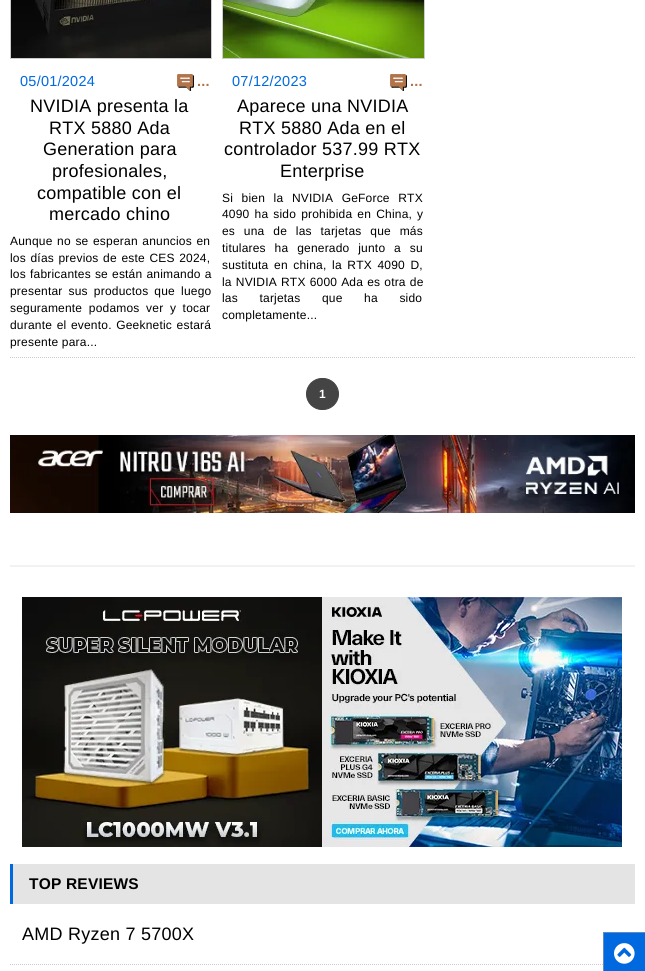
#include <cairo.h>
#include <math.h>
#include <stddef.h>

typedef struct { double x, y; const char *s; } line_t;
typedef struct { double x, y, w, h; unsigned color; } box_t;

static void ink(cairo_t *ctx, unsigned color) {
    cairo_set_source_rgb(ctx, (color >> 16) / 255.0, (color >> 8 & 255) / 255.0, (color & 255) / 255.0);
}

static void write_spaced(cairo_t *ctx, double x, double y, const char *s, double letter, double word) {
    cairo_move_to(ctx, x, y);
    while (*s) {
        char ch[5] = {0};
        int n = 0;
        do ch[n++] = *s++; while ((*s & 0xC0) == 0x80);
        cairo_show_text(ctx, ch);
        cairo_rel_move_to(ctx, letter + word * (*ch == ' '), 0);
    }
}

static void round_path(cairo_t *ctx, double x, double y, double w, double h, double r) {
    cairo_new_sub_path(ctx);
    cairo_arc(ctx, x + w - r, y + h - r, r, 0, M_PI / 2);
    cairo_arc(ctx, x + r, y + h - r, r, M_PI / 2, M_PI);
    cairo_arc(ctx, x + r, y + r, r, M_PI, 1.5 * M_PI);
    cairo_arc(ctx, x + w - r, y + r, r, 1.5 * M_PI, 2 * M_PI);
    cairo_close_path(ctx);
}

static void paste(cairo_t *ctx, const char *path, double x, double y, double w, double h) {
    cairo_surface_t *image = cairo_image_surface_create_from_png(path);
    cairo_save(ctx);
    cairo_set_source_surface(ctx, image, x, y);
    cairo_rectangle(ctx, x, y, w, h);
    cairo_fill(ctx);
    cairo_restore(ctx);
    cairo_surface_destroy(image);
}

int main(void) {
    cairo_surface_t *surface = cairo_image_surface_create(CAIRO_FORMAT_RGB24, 645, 971);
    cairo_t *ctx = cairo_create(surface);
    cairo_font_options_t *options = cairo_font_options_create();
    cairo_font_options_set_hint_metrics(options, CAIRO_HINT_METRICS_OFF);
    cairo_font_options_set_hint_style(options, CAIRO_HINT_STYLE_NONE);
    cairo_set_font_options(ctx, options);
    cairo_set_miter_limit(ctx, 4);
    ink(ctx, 0xFFFFFF);
    cairo_paint(ctx);
    cairo_new_path(ctx);
    cairo_move_to(ctx, 10, 357.5);
    cairo_line_to(ctx, 635, 357.5);
    ink(ctx, 0xCCCCCC);
    cairo_set_line_width(ctx, 1);
    cairo_set_dash(ctx, (double[]){1, 1}, 2, 0);
    cairo_stroke(ctx);
    cairo_rectangle(ctx, 10.5, -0.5, 201, 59);
    cairo_set_dash(ctx, NULL, 0, 0);
    cairo_stroke(ctx);
    paste(ctx, "media/1.png", 11, 0, 200, 58);
    cairo_select_font_face(ctx, "Liberation Sans", CAIRO_FONT_SLANT_NORMAL, CAIRO_FONT_WEIGHT_NORMAL);
    cairo_set_font_size(ctx, 14.5);
    ink(ctx, 0x0069E0);
    write_spaced(ctx, 20, 86, "05/01/2024", 0.25, 0);
    paste(ctx, "media/2.png", 177, 74, 17, 17);
    cairo_select_font_face(ctx, "Liberation Sans", CAIRO_FONT_SLANT_NORMAL, CAIRO_FONT_WEIGHT_BOLD);
    ink(ctx, 0xB2744B);
    write_spaced(ctx, 197, 86, "...", 0.25, 0);
    cairo_select_font_face(ctx, "Liberation Sans", CAIRO_FONT_SLANT_NORMAL, CAIRO_FONT_WEIGHT_NORMAL);
    cairo_set_font_size(ctx, 18);
    ink(ctx, 0x000000);
    {
        static const line_t items[] = {
            {30, 112, "NVIDIA presenta la"},
            {49, 134, "RTX 5880 Ada"},
            {43, 155, "Generation para"},
            {52, 177, "profesionales,"},
            {37, 199, "compatible con el"},
            {49, 220, "mercado chino"},
        };
        for (size_t i = 0; i < sizeof items / sizeof *items; i++) {
            write_spaced(ctx, items[i].x, items[i].y, items[i].s, 0.25, 0);
        }
    }
    cairo_set_font_size(ctx, 12);
    write_spaced(ctx, 10, 245, "Aunque no se esperan anuncios en", 0.2, 1);
    write_spaced(ctx, 10, 262, "los días previos de este CES 2024,", 0.2, 1);
    write_spaced(ctx, 10, 278, "los fabricantes se están animando a", 0.2, 0.5);
    write_spaced(ctx, 10, 295, "presentar sus productos que luego", 0.2, 2.5);
    write_spaced(ctx, 10, 312, "seguramente podamos ver y tocar", 0.2, 3);
    write_spaced(ctx, 10, 329, "durante el evento. Geeknetic estará", 0.2, 1);
    write_spaced(ctx, 10, 346, "presente para...", 0.2, 0);
    cairo_rectangle(ctx, 222.5, -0.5, 202, 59);
    ink(ctx, 0xCCCCCC);
    cairo_stroke(ctx);
    paste(ctx, "media/3.png", 223, 0, 201, 58);
    cairo_set_font_size(ctx, 14.5);
    ink(ctx, 0x0069E0);
    write_spaced(ctx, 232, 86, "07/12/2023", 0.25, 0);
    paste(ctx, "media/2.png", 390, 74, 17, 17);
    cairo_select_font_face(ctx, "Liberation Sans", CAIRO_FONT_SLANT_NORMAL, CAIRO_FONT_WEIGHT_BOLD);
    ink(ctx, 0xB2744B);
    write_spaced(ctx, 410, 86, "...", 0.25, 0);
    cairo_select_font_face(ctx, "Liberation Sans", CAIRO_FONT_SLANT_NORMAL, CAIRO_FONT_WEIGHT_NORMAL);
    cairo_set_font_size(ctx, 18);
    ink(ctx, 0x000000);
    {
        static const line_t items[] = {
            {237, 112, "Aparece una NVIDIA"},
            {239, 134, "RTX 5880 Ada en el"},
            {224, 155, "controlador 537.99 RTX"},
            {280, 177, "Enterprise"},
        };
        for (size_t i = 0; i < sizeof items / sizeof *items; i++) {
            write_spaced(ctx, items[i].x, items[i].y, items[i].s, 0.25, 0);
        }
    }
    cairo_set_font_size(ctx, 12);
    write_spaced(ctx, 222, 202, "Si bien la NVIDIA GeForce RTX", 0.2, 5);
    write_spaced(ctx, 222, 218, "4090 ha sido prohibida en China, y", 0.2, 1.5);
    write_spaced(ctx, 222, 235, "es una de las tarjetas que más", 0.2, 5.25);
    write_spaced(ctx, 222, 252, "titulares ha generado junto a su", 0.2, 5.25);
    write_spaced(ctx, 222, 269, "sustituta en china, la RTX 4090 D,", 0.2, 2);
    write_spaced(ctx, 222, 286, "la NVIDIA RTX 6000 Ada es otra de", 0.2, 0.5);
    write_spaced(ctx, 222, 302, "las tarjetas que ha sido", 0.2, 18);
    write_spaced(ctx, 222, 319, "completamente...", 0.2, 0);
    ink(ctx, 0x444444);
    round_path(ctx, 306.5, 378.5, 32, 31, 15.5);
    cairo_fill_preserve(ctx);
    cairo_stroke(ctx);
    cairo_select_font_face(ctx, "Liberation Sans", CAIRO_FONT_SLANT_NORMAL, CAIRO_FONT_WEIGHT_BOLD);
    ink(ctx, 0xFFFFFF);
    write_spaced(ctx, 319, 398, "1", 0.2, 0);
    paste(ctx, "media/4.png", 10, 435, 625, 78);
    ink(ctx, 0xF2F2F2);
    cairo_rectangle(ctx, 10, 565, 625, 2);
    cairo_fill(ctx);
    paste(ctx, "media/5.png", 22, 597, 300, 250);
    paste(ctx, "media/6.png", 322, 597, 300, 250);
    ink(ctx, 0xE4E4E4);
    cairo_rectangle(ctx, 13, 864, 622, 40);
    cairo_fill(ctx);
    ink(ctx, 0x0069E0);
    cairo_rectangle(ctx, 10, 864, 3, 40);
    cairo_fill(ctx);
    cairo_set_font_size(ctx, 15.5);
    ink(ctx, 0x000000);
    write_spaced(ctx, 29, 889, "TOP REVIEWS", 0.2, 0);
    cairo_new_path(ctx);
    cairo_move_to(ctx, 10, 964.5);
    cairo_line_to(ctx, 635, 964.5);
    ink(ctx, 0xCCCCCC);
    cairo_set_dash(ctx, (double[]){1, 1}, 2, 0);
    cairo_stroke(ctx);
    cairo_select_font_face(ctx, "Liberation Sans", CAIRO_FONT_SLANT_NORMAL, CAIRO_FONT_WEIGHT_NORMAL);
    cairo_set_font_size(ctx, 18);
    ink(ctx, 0x000000);
    write_spaced(ctx, 22, 940, "AMD Ryzen 7 5700X", 0.25, 0);
    {
        static const box_t items[] = {
            {604, 933, 41, 38, 0x0069E0},
            {603, 932, 42, 1, 0x638AC0},
            {603, 932, 1, 39, 0x638AC0},
        };
        for (size_t i = 0; i < sizeof items / sizeof *items; i++) {
            ink(ctx, items[i].color);
            cairo_rectangle(ctx, items[i].x, items[i].y, items[i].w, items[i].h);
            cairo_fill(ctx);
        }
    }
    paste(ctx, "media/7.png", 614, 943, 21, 21);
    cairo_surface_write_to_png(surface, "image.png");
    cairo_font_options_destroy(options);
    cairo_destroy(ctx);
    cairo_surface_destroy(surface);
    return 0;
}
